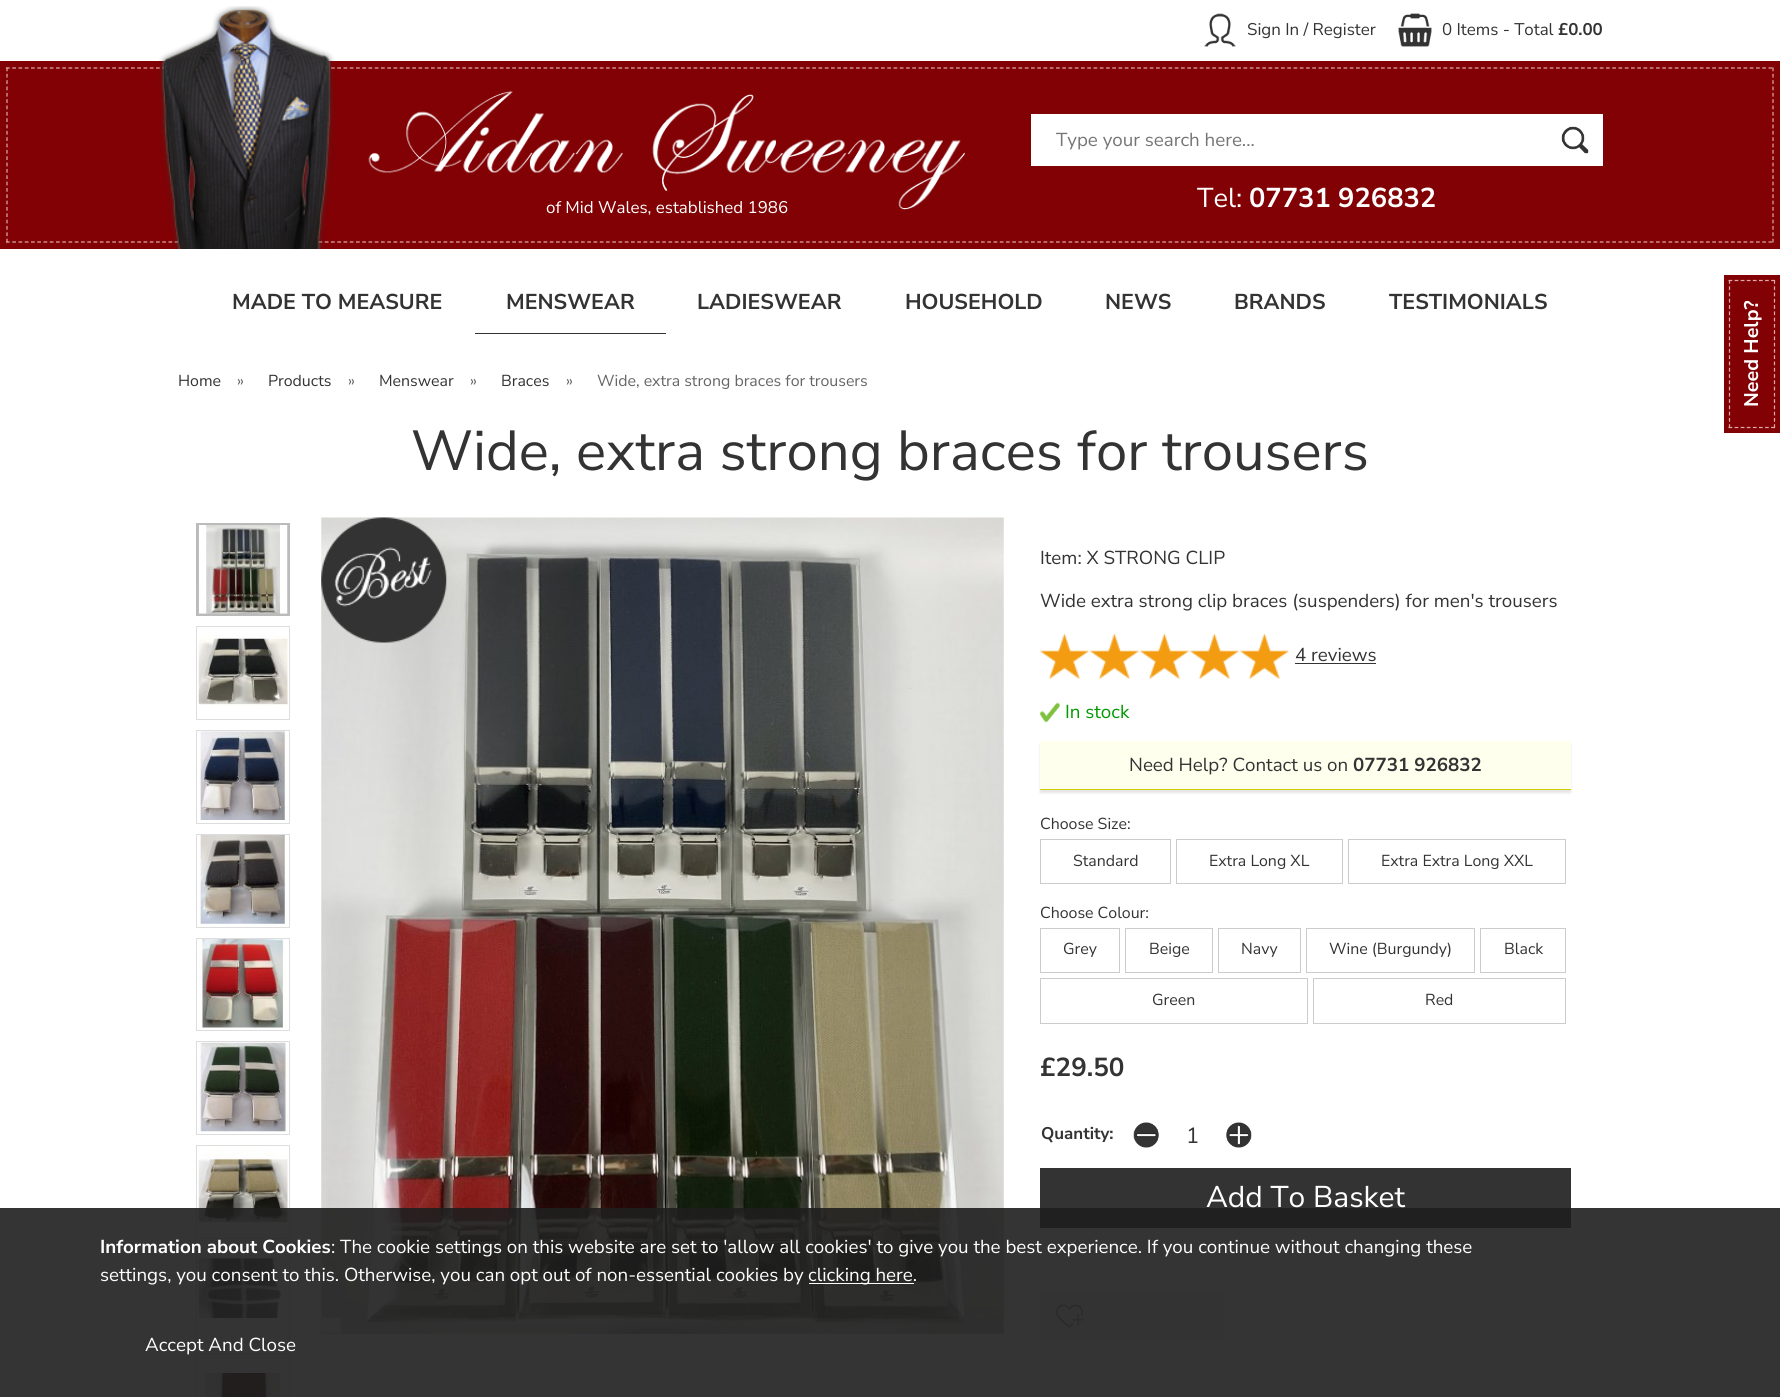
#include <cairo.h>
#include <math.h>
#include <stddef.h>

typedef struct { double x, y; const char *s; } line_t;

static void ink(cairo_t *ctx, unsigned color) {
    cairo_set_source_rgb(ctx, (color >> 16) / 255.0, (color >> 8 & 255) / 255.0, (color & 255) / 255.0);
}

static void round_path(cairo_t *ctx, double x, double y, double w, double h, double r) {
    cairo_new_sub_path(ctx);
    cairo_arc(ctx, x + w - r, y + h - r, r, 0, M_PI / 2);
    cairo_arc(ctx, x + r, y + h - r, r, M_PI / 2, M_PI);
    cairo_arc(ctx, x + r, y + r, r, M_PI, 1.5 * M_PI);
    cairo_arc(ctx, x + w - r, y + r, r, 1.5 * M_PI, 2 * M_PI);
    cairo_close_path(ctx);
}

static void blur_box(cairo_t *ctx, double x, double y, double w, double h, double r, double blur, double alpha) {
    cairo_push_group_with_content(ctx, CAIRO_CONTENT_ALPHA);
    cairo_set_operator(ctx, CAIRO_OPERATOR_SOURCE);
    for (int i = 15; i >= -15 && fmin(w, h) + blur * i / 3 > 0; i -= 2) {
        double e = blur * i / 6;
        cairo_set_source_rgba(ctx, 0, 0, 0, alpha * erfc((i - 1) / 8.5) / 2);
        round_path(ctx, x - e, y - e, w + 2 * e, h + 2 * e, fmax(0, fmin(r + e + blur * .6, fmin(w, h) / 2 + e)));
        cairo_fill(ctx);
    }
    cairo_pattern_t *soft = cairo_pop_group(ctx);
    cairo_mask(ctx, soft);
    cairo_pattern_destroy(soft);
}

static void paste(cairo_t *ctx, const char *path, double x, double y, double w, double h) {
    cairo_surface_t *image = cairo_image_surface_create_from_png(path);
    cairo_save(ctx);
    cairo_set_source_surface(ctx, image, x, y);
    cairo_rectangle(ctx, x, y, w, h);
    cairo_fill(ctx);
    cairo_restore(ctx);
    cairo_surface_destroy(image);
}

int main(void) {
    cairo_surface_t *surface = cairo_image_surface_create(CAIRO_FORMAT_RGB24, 1780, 1397);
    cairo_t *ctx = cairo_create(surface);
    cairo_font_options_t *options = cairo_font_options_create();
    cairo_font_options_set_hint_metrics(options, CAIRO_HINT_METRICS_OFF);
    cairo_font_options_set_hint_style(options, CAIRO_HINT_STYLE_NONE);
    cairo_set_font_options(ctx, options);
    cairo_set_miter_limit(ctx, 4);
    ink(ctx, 0xFFFFFF);
    cairo_paint(ctx);
    paste(ctx, "media/1.png", 1204, 13, 32, 34);
    cairo_select_font_face(ctx, "Nunito Sans", CAIRO_FONT_SLANT_NORMAL, CAIRO_FONT_WEIGHT_NORMAL);
    cairo_set_font_size(ctx, 16.9);
    ink(ctx, 0x333333);
    cairo_move_to(ctx, 1247, 35);
    cairo_show_text(ctx, "Sign In / Register");
    paste(ctx, "media/2.png", 1398, 13, 34, 34);
    cairo_move_to(ctx, 1442, 35);
    cairo_show_text(ctx, "0 Items - Total");
    cairo_select_font_face(ctx, "Nunito Sans", CAIRO_FONT_SLANT_NORMAL, CAIRO_FONT_WEIGHT_BOLD);
    cairo_move_to(ctx, 1558, 35);
    cairo_show_text(ctx, "£0.00");
    ink(ctx, 0x810105);
    cairo_rectangle(ctx, 0, 61, 1780, 188);
    cairo_fill(ctx);
    cairo_new_path(ctx);
    cairo_move_to(ctx, 6, 68);
    cairo_line_to(ctx, 1774, 68);
    ink(ctx, 0xDEAAAA);
    cairo_set_line_width(ctx, 1.2);
    cairo_set_dash(ctx, (double[]){3.75, 2.5}, 2, 0);
    cairo_stroke(ctx);
    cairo_new_path(ctx);
    cairo_move_to(ctx, 1773, 67.5);
    cairo_line_to(ctx, 1773, 242.5);
    cairo_set_dash(ctx, (double[]){3.75, 2.59}, 2, 0);
    cairo_stroke(ctx);
    cairo_new_path(ctx);
    cairo_move_to(ctx, 6, 242);
    cairo_line_to(ctx, 1774, 242);
    cairo_set_dash(ctx, (double[]){3.75, 2.5}, 2, 0);
    cairo_stroke(ctx);
    cairo_new_path(ctx);
    cairo_move_to(ctx, 7, 67.5);
    cairo_line_to(ctx, 7, 242.5);
    cairo_set_dash(ctx, (double[]){3.75, 2.59}, 2, 0);
    cairo_stroke(ctx);
    ink(ctx, 0xFFFFFF);
    cairo_rectangle(ctx, 1031, 114, 572, 52);
    cairo_fill(ctx);
    cairo_select_font_face(ctx, "Nunito Sans", CAIRO_FONT_SLANT_NORMAL, CAIRO_FONT_WEIGHT_NORMAL);
    cairo_set_font_size(ctx, 18.75);
    ink(ctx, 0x757575);
    cairo_move_to(ctx, 1056, 146);
    cairo_show_text(ctx, "Type your search here...");
    paste(ctx, "media/3.png", 1561, 126, 28, 28);
    paste(ctx, "media/4.png", 159, 6, 175, 243);
    paste(ctx, "media/5.png", 368, 91, 597, 119);
    cairo_set_font_size(ctx, 16.9);
    ink(ctx, 0xFFFFFF);
    cairo_move_to(ctx, 546, 213);
    cairo_show_text(ctx, "of Mid Wales, established 1986");
    cairo_set_font_size(ctx, 27.25);
    cairo_move_to(ctx, 1197, 207);
    cairo_show_text(ctx, "Tel:");
    cairo_select_font_face(ctx, "Nunito Sans", CAIRO_FONT_SLANT_NORMAL, CAIRO_FONT_WEIGHT_BOLD);
    cairo_move_to(ctx, 1249, 207);
    cairo_show_text(ctx, "07731 926832");
    cairo_set_font_size(ctx, 21.5);
    ink(ctx, 0x333333);
    cairo_move_to(ctx, 232, 309);
    cairo_show_text(ctx, "MADE TO MEASURE");
    cairo_rectangle(ctx, 475, 333, 191, 1);
    cairo_fill(ctx);
    {
        static const line_t items[] = {
            {506, 309, "MENSWEAR"},
            {697, 309, "LADIESWEAR"},
            {905, 309, "HOUSEHOLD"},
            {1105, 309, "NEWS"},
            {1234, 309, "BRANDS"},
            {1389, 309, "TESTIMONIALS"},
        };
        for (size_t i = 0; i < sizeof items / sizeof *items; i++) {
            cairo_move_to(ctx, items[i].x, items[i].y);
            cairo_show_text(ctx, items[i].s);
        }
    }
    cairo_select_font_face(ctx, "Nunito Sans", CAIRO_FONT_SLANT_NORMAL, CAIRO_FONT_WEIGHT_NORMAL);
    cairo_set_font_size(ctx, 15.9);
    cairo_move_to(ctx, 178, 386);
    cairo_show_text(ctx, "Home");
    ink(ctx, 0x666666);
    cairo_move_to(ctx, 237, 386);
    cairo_show_text(ctx, "»");
    ink(ctx, 0x333333);
    cairo_move_to(ctx, 268, 386);
    cairo_show_text(ctx, "Products");
    ink(ctx, 0x666666);
    cairo_move_to(ctx, 348, 386);
    cairo_show_text(ctx, "»");
    ink(ctx, 0x333333);
    cairo_move_to(ctx, 379, 386);
    cairo_show_text(ctx, "Menswear");
    ink(ctx, 0x666666);
    cairo_move_to(ctx, 470, 386);
    cairo_show_text(ctx, "»");
    ink(ctx, 0x333333);
    cairo_move_to(ctx, 501, 386);
    cairo_show_text(ctx, "Braces");
    ink(ctx, 0x666666);
    cairo_move_to(ctx, 566, 386);
    cairo_show_text(ctx, "»");
    cairo_move_to(ctx, 597, 386);
    cairo_show_text(ctx, "Wide, extra strong braces for trousers");
    cairo_set_font_size(ctx, 56.25);
    ink(ctx, 0x333333);
    cairo_move_to(ctx, 411, 470);
    cairo_show_text(ctx, "Wide, extra strong braces for trousers");
    cairo_rectangle(ctx, 197.5, 524.5, 91, 90);
    ink(ctx, 0xBBBBBB);
    cairo_set_line_width(ctx, 3);
    cairo_set_dash(ctx, NULL, 0, 0);
    cairo_stroke(ctx);
    paste(ctx, "media/6.png", 198, 525, 90, 89);
    cairo_rectangle(ctx, 196.5, 626.5, 93, 93);
    ink(ctx, 0xDDDDDD);
    cairo_set_line_width(ctx, 1);
    cairo_stroke(ctx);
    paste(ctx, "media/7.png", 198, 635, 90, 71);
    cairo_rectangle(ctx, 196.5, 730.5, 93, 93);
    cairo_stroke(ctx);
    paste(ctx, "media/8.png", 199, 731, 87, 89);
    cairo_rectangle(ctx, 196.5, 834.5, 93, 93);
    cairo_stroke(ctx);
    paste(ctx, "media/9.png", 199, 835, 87, 89);
    cairo_rectangle(ctx, 196.5, 938.5, 93, 92);
    cairo_stroke(ctx);
    paste(ctx, "media/10.png", 199, 939, 87, 89);
    cairo_rectangle(ctx, 196.5, 1041.5, 93, 93);
    cairo_stroke(ctx);
    paste(ctx, "media/11.png", 199, 1042, 89, 90);
    cairo_rectangle(ctx, 196.5, 1145.5, 93, 93);
    cairo_stroke(ctx);
    paste(ctx, "media/12.png", 198, 1147, 90, 77);
    cairo_rectangle(ctx, 196.5, 1249.5, 93, 93);
    cairo_stroke(ctx);
    paste(ctx, "media/13.png", 198, 1257, 90, 61);
    cairo_rectangle(ctx, 196.5, 1353.5, 93, 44);
    cairo_stroke(ctx);
    paste(ctx, "media/14.png", 205, 1373, 76, 24);
    paste(ctx, "media/15.png", 321, 517, 683, 817);
    paste(ctx, "media/16.png", 321, 517, 126, 126);
    cairo_set_font_size(ctx, 18.75);
    ink(ctx, 0x333333);
    cairo_move_to(ctx, 1040, 564);
    cairo_show_text(ctx, "Item: X STRONG CLIP");
    cairo_move_to(ctx, 1040, 607);
    cairo_show_text(ctx, "Wide extra strong clip braces (suspenders) for men's trousers");
    paste(ctx, "media/17.png", 1040, 633, 249, 46);
    cairo_move_to(ctx, 1295, 661);
    cairo_show_text(ctx, "4 reviews");
    cairo_rectangle(ctx, 1295, 663, 81, 1);
    cairo_fill(ctx);
    paste(ctx, "media/18.png", 1040, 702, 20, 21);
    ink(ctx, 0x009900);
    cairo_move_to(ctx, 1065, 718);
    cairo_show_text(ctx, "In stock");
    ink(ctx, 0x000000);
    blur_box(ctx, 1040, 744, 531, 49, 0, 1, 0.1);
    ink(ctx, 0xFFFFEE);
    cairo_rectangle(ctx, 1040, 741, 531, 48);
    cairo_fill(ctx);
    ink(ctx, 0xCCCC00);
    cairo_rectangle(ctx, 1040, 789, 531, 1);
    cairo_fill(ctx);
    ink(ctx, 0x333333);
    cairo_move_to(ctx, 1129, 771);
    cairo_show_text(ctx, "Need Help? Contact us on");
    cairo_select_font_face(ctx, "Nunito Sans", CAIRO_FONT_SLANT_NORMAL, CAIRO_FONT_WEIGHT_BOLD);
    cairo_move_to(ctx, 1353, 771);
    cairo_show_text(ctx, "07731 926832");
    cairo_select_font_face(ctx, "Nunito Sans", CAIRO_FONT_SLANT_NORMAL, CAIRO_FONT_WEIGHT_NORMAL);
    cairo_set_font_size(ctx, 15.9);
    cairo_move_to(ctx, 1040, 829);
    cairo_show_text(ctx, "Choose Size:");
    cairo_rectangle(ctx, 1040.5, 839.5, 130, 44);
    ink(ctx, 0xCCCCCC);
    cairo_stroke(ctx);
    ink(ctx, 0x333333);
    cairo_move_to(ctx, 1073, 866);
    cairo_show_text(ctx, "Standard");
    cairo_rectangle(ctx, 1176.5, 839.5, 166, 44);
    ink(ctx, 0xCCCCCC);
    cairo_stroke(ctx);
    ink(ctx, 0x333333);
    cairo_move_to(ctx, 1209, 866);
    cairo_show_text(ctx, "Extra Long XL");
    cairo_rectangle(ctx, 1348.5, 839.5, 217, 44);
    ink(ctx, 0xCCCCCC);
    cairo_stroke(ctx);
    ink(ctx, 0x333333);
    cairo_move_to(ctx, 1381, 866);
    cairo_show_text(ctx, "Extra Extra Long XXL");
    cairo_move_to(ctx, 1040, 918);
    cairo_show_text(ctx, "Choose Colour:");
    cairo_rectangle(ctx, 1040.5, 928.5, 79, 44);
    ink(ctx, 0xCCCCCC);
    cairo_stroke(ctx);
    ink(ctx, 0x333333);
    cairo_move_to(ctx, 1063, 954);
    cairo_show_text(ctx, "Grey");
    cairo_rectangle(ctx, 1125.5, 928.5, 87, 44);
    ink(ctx, 0xCCCCCC);
    cairo_stroke(ctx);
    ink(ctx, 0x333333);
    cairo_move_to(ctx, 1149, 954);
    cairo_show_text(ctx, "Beige");
    cairo_rectangle(ctx, 1218.5, 928.5, 82, 44);
    ink(ctx, 0xCCCCCC);
    cairo_stroke(ctx);
    ink(ctx, 0x333333);
    cairo_move_to(ctx, 1241, 954);
    cairo_show_text(ctx, "Navy");
    cairo_rectangle(ctx, 1306.5, 928.5, 168, 44);
    ink(ctx, 0xCCCCCC);
    cairo_stroke(ctx);
    ink(ctx, 0x333333);
    cairo_move_to(ctx, 1329, 954);
    cairo_show_text(ctx, "Wine (Burgundy)");
    cairo_rectangle(ctx, 1480.5, 928.5, 85, 44);
    ink(ctx, 0xCCCCCC);
    cairo_stroke(ctx);
    ink(ctx, 0x333333);
    cairo_move_to(ctx, 1504, 954);
    cairo_show_text(ctx, "Black");
    cairo_rectangle(ctx, 1040.5, 978.5, 267, 45);
    ink(ctx, 0xCCCCCC);
    cairo_stroke(ctx);
    ink(ctx, 0x333333);
    cairo_move_to(ctx, 1152, 1005);
    cairo_show_text(ctx, "Green");
    cairo_rectangle(ctx, 1313.5, 978.5, 252, 45);
    ink(ctx, 0xCCCCCC);
    cairo_stroke(ctx);
    ink(ctx, 0x333333);
    cairo_move_to(ctx, 1425, 1005);
    cairo_show_text(ctx, "Red");
    cairo_select_font_face(ctx, "Nunito Sans", CAIRO_FONT_SLANT_NORMAL, CAIRO_FONT_WEIGHT_BOLD);
    cairo_set_font_size(ctx, 26);
    cairo_move_to(ctx, 1040, 1076);
    cairo_show_text(ctx, "£29.50");
    cairo_set_font_size(ctx, 16.9);
    cairo_move_to(ctx, 1041, 1139);
    cairo_show_text(ctx, "Quantity:");
    paste(ctx, "media/19.png", 1133, 1122, 26, 26);
    cairo_select_font_face(ctx, "Nunito Sans", CAIRO_FONT_SLANT_NORMAL, CAIRO_FONT_WEIGHT_NORMAL);
    cairo_set_font_size(ctx, 22);
    cairo_move_to(ctx, 1186, 1143);
    cairo_show_text(ctx, "1");
    paste(ctx, "media/20.png", 1226, 1122, 26, 26);
    cairo_rectangle(ctx, 1040, 1168, 531, 60);
    cairo_fill(ctx);
    cairo_set_font_size(ctx, 30);
    ink(ctx, 0xFFFFFF);
    cairo_move_to(ctx, 1206, 1207);
    cairo_show_text(ctx, "Add To Basket");
    ink(ctx, 0xF3F3F3);
    cairo_rectangle(ctx, 1040, 1290, 183, 51);
    cairo_fill(ctx);
    paste(ctx, "media/21.png", 1055, 1304, 29, 24);
    ink(ctx, 0x810105);
    cairo_rectangle(ctx, 1724, 275, 56, 158);
    cairo_fill(ctx);
    cairo_new_path(ctx);
    cairo_move_to(ctx, 1729.5, 428);
    cairo_line_to(ctx, 1729.5, 280);
    ink(ctx, 0xDEAAAA);
    cairo_set_line_width(ctx, 1.2);
    cairo_set_dash(ctx, (double[]){3.75, 2.52}, 2, 0);
    cairo_stroke(ctx);
    cairo_new_path(ctx);
    cairo_move_to(ctx, 1728.5, 280.5);
    cairo_line_to(ctx, 1775, 280.5);
    cairo_set_dash(ctx, (double[]){3.75, 2.34}, 2, 0);
    cairo_stroke(ctx);
    cairo_new_path(ctx);
    cairo_move_to(ctx, 1774.5, 428);
    cairo_line_to(ctx, 1774.5, 280);
    cairo_set_dash(ctx, (double[]){3.75, 2.52}, 2, 0);
    cairo_stroke(ctx);
    cairo_new_path(ctx);
    cairo_move_to(ctx, 1728.5, 427.5);
    cairo_line_to(ctx, 1775, 427.5);
    cairo_set_dash(ctx, (double[]){3.75, 2.34}, 2, 0);
    cairo_stroke(ctx);
    cairo_select_font_face(ctx, "Nunito Sans", CAIRO_FONT_SLANT_NORMAL, CAIRO_FONT_WEIGHT_BOLD);
    cairo_set_font_size(ctx, 19.75);
    ink(ctx, 0xFFFFFF);
    cairo_save(ctx);
    cairo_translate(ctx, 1758, 407);
    cairo_rotate(ctx, -90 * M_PI / 180);
    cairo_move_to(ctx, 0, 0);
    cairo_show_text(ctx, "Need Help?");
    cairo_restore(ctx);
    cairo_set_source_rgba(ctx, 0.118, 0.118, 0.118, 0.9);
    cairo_rectangle(ctx, 0, 1208, 1780, 189);
    cairo_fill(ctx);
    cairo_set_font_size(ctx, 18.75);
    ink(ctx, 0xFFFFFF);
    cairo_move_to(ctx, 100, 1253);
    cairo_show_text(ctx, "Information about Cookies");
    cairo_select_font_face(ctx, "Nunito Sans", CAIRO_FONT_SLANT_NORMAL, CAIRO_FONT_WEIGHT_NORMAL);
    cairo_move_to(ctx, 331, 1253);
    cairo_show_text(ctx, ": The cookie settings on this website are set to 'allow all cookies' to give you the best experience. If you continue without changing these");
    cairo_move_to(ctx, 100, 1281);
    cairo_show_text(ctx, "settings, you consent to this. Otherwise, you can opt out of non-essential cookies by");
    cairo_rectangle(ctx, 809, 1283, 105, 1);
    cairo_fill(ctx);
    cairo_move_to(ctx, 808, 1281);
    cairo_show_text(ctx, "clicking here.");
    ink(ctx, 0x333333);
    cairo_rectangle(ctx, 322, 1318, 19, 15);
    cairo_fill(ctx);
    ink(ctx, 0xFFFFFF);
    cairo_move_to(ctx, 145, 1351);
    cairo_show_text(ctx, "Accept And Close");
    cairo_surface_write_to_png(surface, "image.png");
    cairo_font_options_destroy(options);
    cairo_destroy(ctx);
    cairo_surface_destroy(surface);
    return 0;
}
